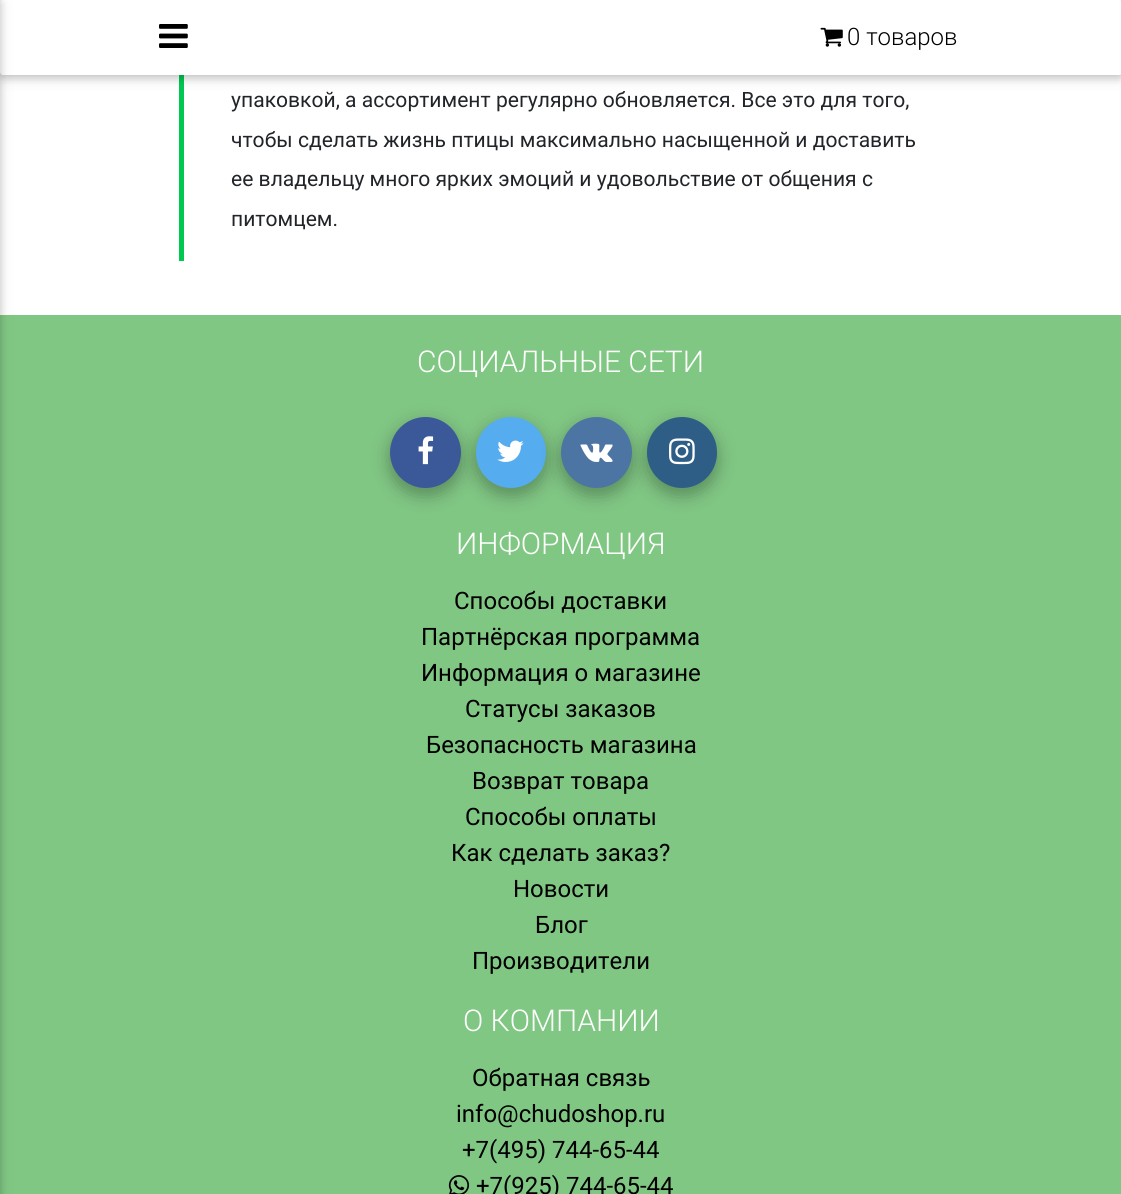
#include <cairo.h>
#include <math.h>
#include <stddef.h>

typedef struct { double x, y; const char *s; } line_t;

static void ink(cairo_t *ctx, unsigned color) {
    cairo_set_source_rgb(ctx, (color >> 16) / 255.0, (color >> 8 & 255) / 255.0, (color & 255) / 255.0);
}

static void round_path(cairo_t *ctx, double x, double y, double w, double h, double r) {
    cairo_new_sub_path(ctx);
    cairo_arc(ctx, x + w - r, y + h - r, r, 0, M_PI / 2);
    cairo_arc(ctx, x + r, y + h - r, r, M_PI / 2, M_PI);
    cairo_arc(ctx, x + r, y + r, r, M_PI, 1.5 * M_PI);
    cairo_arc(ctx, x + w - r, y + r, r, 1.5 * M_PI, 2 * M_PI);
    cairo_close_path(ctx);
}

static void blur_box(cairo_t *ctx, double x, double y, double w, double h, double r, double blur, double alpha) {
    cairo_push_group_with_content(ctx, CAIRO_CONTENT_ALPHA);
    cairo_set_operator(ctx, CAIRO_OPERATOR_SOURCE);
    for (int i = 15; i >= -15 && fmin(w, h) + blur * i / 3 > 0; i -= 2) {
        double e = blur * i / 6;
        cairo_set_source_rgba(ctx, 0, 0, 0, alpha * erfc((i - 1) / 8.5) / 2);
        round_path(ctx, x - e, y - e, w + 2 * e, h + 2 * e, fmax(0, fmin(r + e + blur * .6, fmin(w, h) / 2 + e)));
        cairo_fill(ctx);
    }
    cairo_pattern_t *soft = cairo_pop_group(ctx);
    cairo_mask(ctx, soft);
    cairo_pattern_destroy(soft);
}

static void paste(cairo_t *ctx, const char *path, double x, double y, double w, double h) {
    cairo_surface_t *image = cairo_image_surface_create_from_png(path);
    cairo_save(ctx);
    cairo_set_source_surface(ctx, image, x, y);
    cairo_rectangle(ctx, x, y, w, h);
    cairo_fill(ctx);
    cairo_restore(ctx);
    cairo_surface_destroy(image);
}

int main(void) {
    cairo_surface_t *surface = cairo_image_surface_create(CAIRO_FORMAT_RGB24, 1121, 1194);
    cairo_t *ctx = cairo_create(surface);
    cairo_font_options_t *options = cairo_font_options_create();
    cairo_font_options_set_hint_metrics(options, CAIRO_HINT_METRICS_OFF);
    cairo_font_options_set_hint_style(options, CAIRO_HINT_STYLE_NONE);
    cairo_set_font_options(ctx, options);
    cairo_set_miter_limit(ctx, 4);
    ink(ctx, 0xFFFFFF);
    cairo_paint(ctx);
    ink(ctx, 0x00C851);
    cairo_rectangle(ctx, 179, 75, 5, 186);
    cairo_fill(ctx);
    ink(ctx, 0x000000);
    blur_box(ctx, 0, 3, 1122, 75, 3, 7.5, 0.12);
    blur_box(ctx, 0, 3, 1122, 75, 3, 4, 0.16);
    ink(ctx, 0xFFFFFF);
    round_path(ctx, 0, 0, 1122, 75, 3);
    cairo_fill(ctx);
    ink(ctx, 0x81C784);
    cairo_rectangle(ctx, 0, 315, 1121, 879);
    cairo_fill(ctx);
    ink(ctx, 0x000000);
    blur_box(ctx, -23, 3, 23, 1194, 0, 7.5, 0.12);
    blur_box(ctx, -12, 3, 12, 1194, 0, 4, 0.16);
    paste(ctx, "media/1.png", 159, 24, 29, 24);
    paste(ctx, "media/2.png", 820, 27, 23, 20);
    cairo_select_font_face(ctx, "Roboto Light", CAIRO_FONT_SLANT_NORMAL, CAIRO_FONT_WEIGHT_NORMAL);
    cairo_set_font_size(ctx, 24);
    ink(ctx, 0x000000);
    cairo_move_to(ctx, 847, 45);
    cairo_show_text(ctx, "0 товаров");
    cairo_select_font_face(ctx, "Roboto", CAIRO_FONT_SLANT_NORMAL, CAIRO_FONT_WEIGHT_NORMAL);
    cairo_set_font_size(ctx, 21.1);
    ink(ctx, 0x212529);
    {
        static const line_t items[] = {
            {231, 107, "упаковкой, а ассортимент регулярно обновляется. Все это для того,"},
            {231, 147, "чтобы сделать жизнь птицы максимально насыщенной и доставить"},
            {231, 186, "ее владельцу много ярких эмоций и удовольствие от общения с"},
            {231, 226, "питомцем."},
        };
        for (size_t i = 0; i < sizeof items / sizeof *items; i++) {
            cairo_move_to(ctx, items[i].x, items[i].y);
            cairo_show_text(ctx, items[i].s);
        }
    }
    cairo_select_font_face(ctx, "Roboto Light", CAIRO_FONT_SLANT_NORMAL, CAIRO_FONT_WEIGHT_NORMAL);
    cairo_set_font_size(ctx, 30);
    ink(ctx, 0xFFFFFF);
    cairo_move_to(ctx, 417, 372);
    cairo_show_text(ctx, "СОЦИАЛЬНЫЕ СЕТИ");
    ink(ctx, 0x000000);
    blur_box(ctx, 390, 423, 71, 71, 35.5, 11, 0.15);
    blur_box(ctx, 390, 425, 71, 70, 35, 8, 0.18);
    ink(ctx, 0x3B5998);
    cairo_arc(ctx, 425.5, 452.5, 35.5, 0, 2 * M_PI);
    cairo_fill(ctx);
    paste(ctx, "media/3.png", 418, 436, 16, 29);
    ink(ctx, 0x000000);
    blur_box(ctx, 476, 423, 70, 71, 35, 11, 0.15);
    blur_box(ctx, 476, 425, 70, 70, 35, 8, 0.18);
    ink(ctx, 0x55ACEE);
    round_path(ctx, 476, 417, 70, 71, 35);
    cairo_fill(ctx);
    paste(ctx, "media/4.png", 497, 440, 27, 22);
    ink(ctx, 0x000000);
    blur_box(ctx, 561, 423, 71, 71, 35.5, 11, 0.15);
    blur_box(ctx, 561, 425, 71, 70, 35, 8, 0.18);
    ink(ctx, 0x4C75A3);
    cairo_arc(ctx, 596.5, 452.5, 35.5, 0, 2 * M_PI);
    cairo_fill(ctx);
    paste(ctx, "media/5.png", 580, 443, 33, 19);
    ink(ctx, 0x000000);
    blur_box(ctx, 647, 423, 70, 71, 35, 11, 0.15);
    blur_box(ctx, 647, 425, 70, 70, 35, 8, 0.18);
    ink(ctx, 0x2E5E86);
    round_path(ctx, 647, 417, 70, 71, 35);
    cairo_fill(ctx);
    paste(ctx, "media/6.png", 669, 438, 26, 27);
    ink(ctx, 0xFFFFFF);
    cairo_move_to(ctx, 456, 554);
    cairo_show_text(ctx, "ИНФОРМАЦИЯ");
    cairo_select_font_face(ctx, "Roboto", CAIRO_FONT_SLANT_NORMAL, CAIRO_FONT_WEIGHT_NORMAL);
    cairo_set_font_size(ctx, 24);
    ink(ctx, 0x000000);
    {
        static const line_t items[] = {
            {454, 609, "Способы доставки"},
            {421, 645, "Партнёрская программа"},
            {421, 681, "Информация о магазине"},
            {465, 717, "Статусы заказов"},
            {426, 753, "Безопасность магазина"},
            {472, 789, "Возврат товара"},
            {465, 825, "Способы оплаты"},
            {451, 861, "Как сделать заказ?"},
            {513, 897, "Новости"},
            {535, 933, "Блог"},
            {472, 969, "Производители"},
        };
        for (size_t i = 0; i < sizeof items / sizeof *items; i++) {
            cairo_move_to(ctx, items[i].x, items[i].y);
            cairo_show_text(ctx, items[i].s);
        }
    }
    cairo_select_font_face(ctx, "Roboto Light", CAIRO_FONT_SLANT_NORMAL, CAIRO_FONT_WEIGHT_NORMAL);
    cairo_set_font_size(ctx, 30);
    ink(ctx, 0xFFFFFF);
    cairo_move_to(ctx, 463, 1031);
    cairo_show_text(ctx, "О КОМПАНИИ");
    cairo_select_font_face(ctx, "Roboto", CAIRO_FONT_SLANT_NORMAL, CAIRO_FONT_WEIGHT_NORMAL);
    cairo_set_font_size(ctx, 24);
    ink(ctx, 0x000000);
    {
        static const line_t items[] = {
            {472, 1086, "Обратная связь"},
            {456, 1122, "info@chudoshop.ru"},
            {462, 1158, "+7(495) 744-65-44"},
        };
        for (size_t i = 0; i < sizeof items / sizeof *items; i++) {
            cairo_move_to(ctx, items[i].x, items[i].y);
            cairo_show_text(ctx, items[i].s);
        }
    }
    paste(ctx, "media/7.png", 448, 1175, 22, 19);
    cairo_move_to(ctx, 476, 1194);
    cairo_show_text(ctx, "+7(925) 744-65-44");
    cairo_surface_write_to_png(surface, "image.png");
    cairo_font_options_destroy(options);
    cairo_destroy(ctx);
    cairo_surface_destroy(surface);
    return 0;
}
